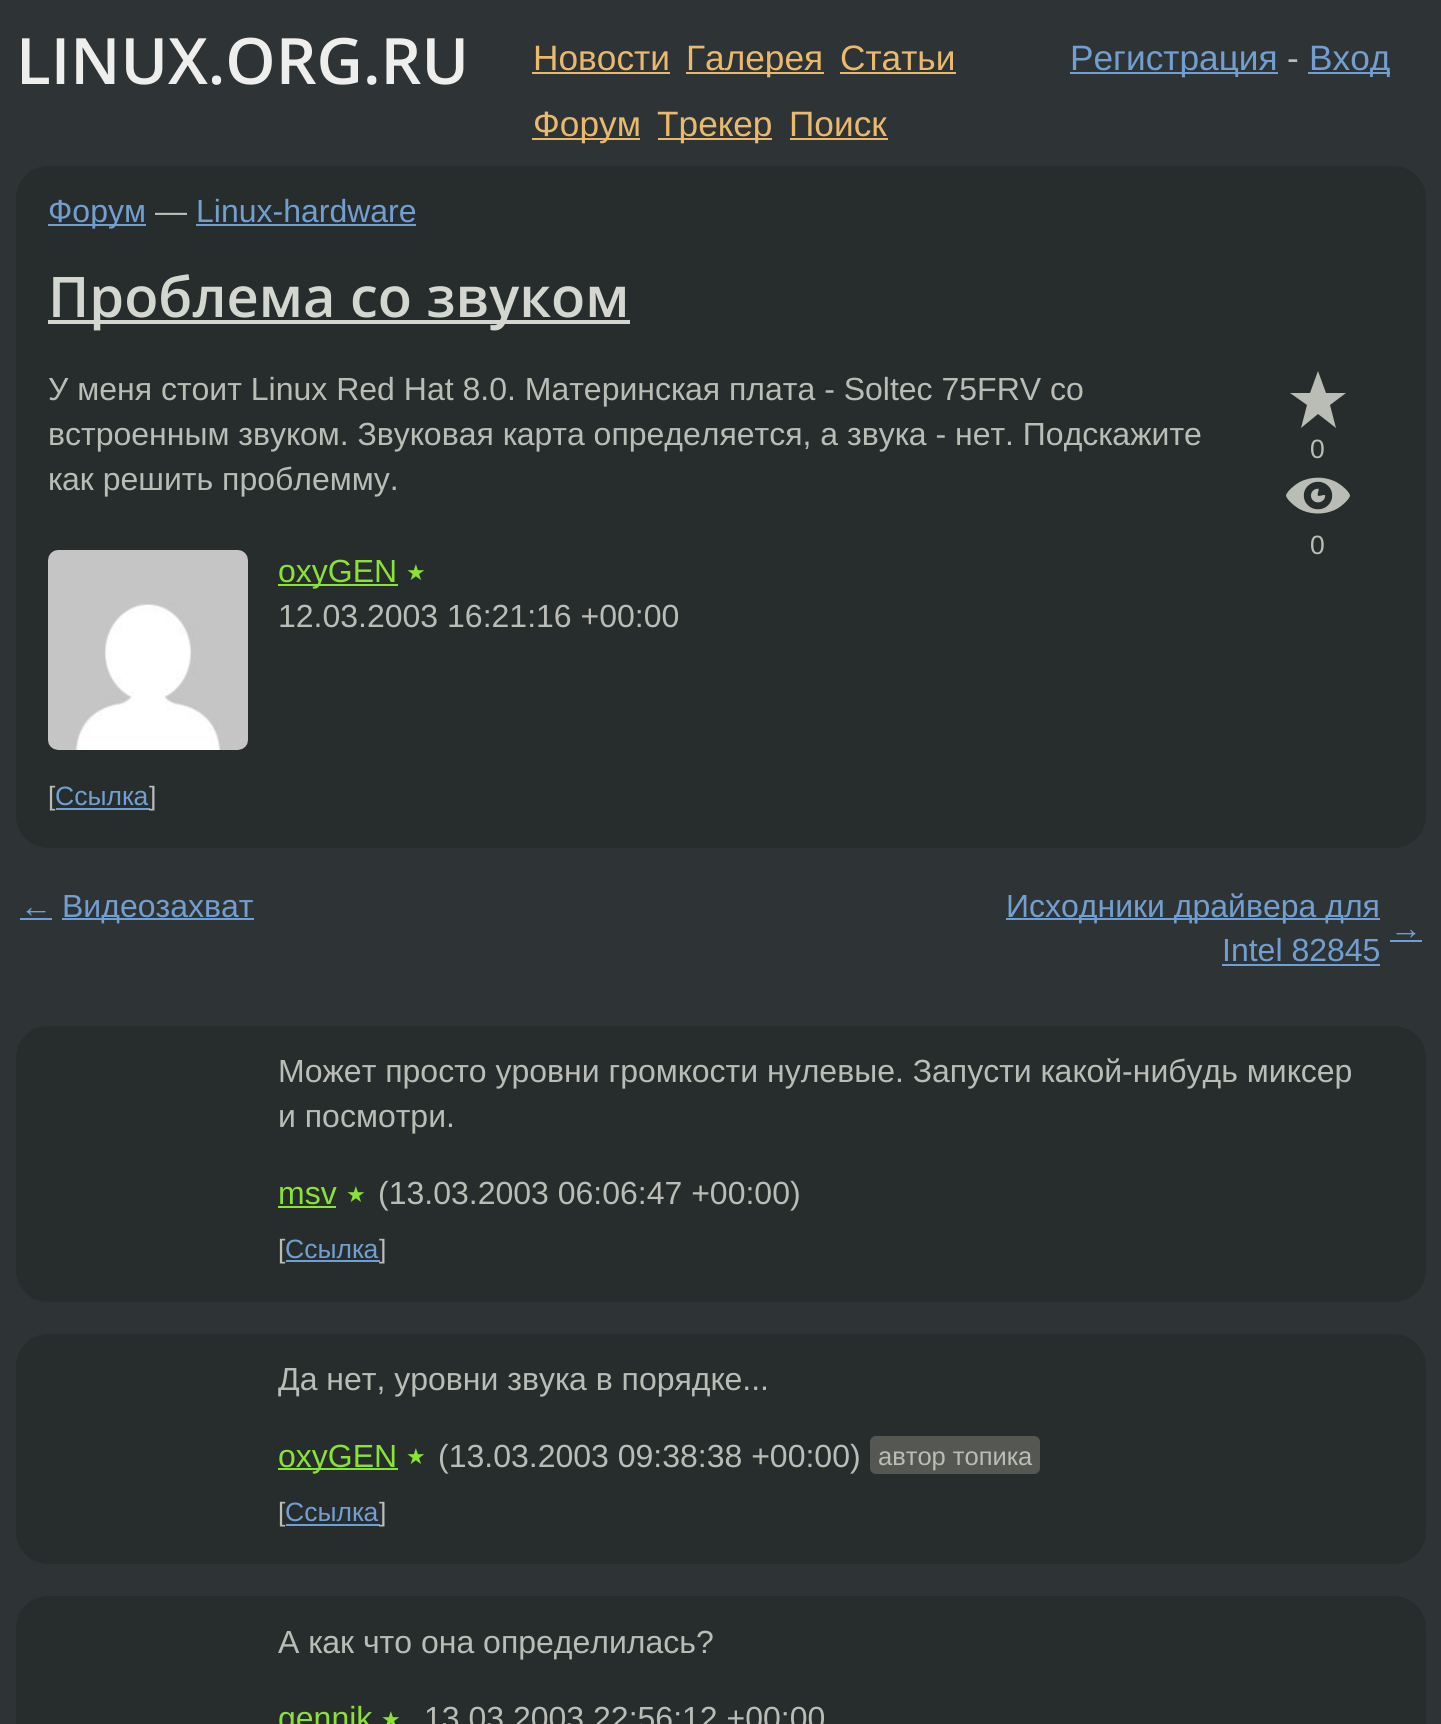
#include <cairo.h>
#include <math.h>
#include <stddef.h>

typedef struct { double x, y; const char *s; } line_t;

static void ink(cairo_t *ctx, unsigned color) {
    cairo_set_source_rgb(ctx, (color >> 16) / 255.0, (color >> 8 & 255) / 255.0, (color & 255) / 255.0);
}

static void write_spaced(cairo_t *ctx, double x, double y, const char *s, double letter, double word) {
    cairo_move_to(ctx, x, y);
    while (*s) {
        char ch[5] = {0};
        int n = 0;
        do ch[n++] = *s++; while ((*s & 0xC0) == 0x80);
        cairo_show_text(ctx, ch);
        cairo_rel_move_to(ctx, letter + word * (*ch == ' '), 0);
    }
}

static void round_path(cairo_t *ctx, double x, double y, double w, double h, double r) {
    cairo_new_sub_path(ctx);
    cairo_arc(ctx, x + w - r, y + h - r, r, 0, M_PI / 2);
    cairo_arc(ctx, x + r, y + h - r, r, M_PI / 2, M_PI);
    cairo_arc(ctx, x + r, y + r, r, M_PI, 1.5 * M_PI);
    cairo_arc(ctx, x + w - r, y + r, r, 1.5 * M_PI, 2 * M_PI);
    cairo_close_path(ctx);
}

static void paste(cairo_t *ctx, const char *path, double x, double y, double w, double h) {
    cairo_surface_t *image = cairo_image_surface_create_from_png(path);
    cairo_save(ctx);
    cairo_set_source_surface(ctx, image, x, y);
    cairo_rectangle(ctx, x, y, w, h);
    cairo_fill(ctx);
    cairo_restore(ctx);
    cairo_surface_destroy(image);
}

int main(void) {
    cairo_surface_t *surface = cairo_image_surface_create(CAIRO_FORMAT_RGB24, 1441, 1724);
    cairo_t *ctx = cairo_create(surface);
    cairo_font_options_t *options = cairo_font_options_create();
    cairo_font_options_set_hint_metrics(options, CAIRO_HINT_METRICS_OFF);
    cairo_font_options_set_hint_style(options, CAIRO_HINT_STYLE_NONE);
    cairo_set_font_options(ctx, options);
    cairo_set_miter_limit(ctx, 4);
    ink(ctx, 0x2E3436);
    cairo_paint(ctx);
    cairo_select_font_face(ctx, "Open Sans SemiBold", CAIRO_FONT_SLANT_NORMAL, CAIRO_FONT_WEIGHT_NORMAL);
    cairo_set_font_size(ctx, 64);
    ink(ctx, 0xEEEEEC);
    cairo_move_to(ctx, 16, 84);
    cairo_show_text(ctx, "LINUX.ORG.RU");
    cairo_select_font_face(ctx, "Liberation Sans", CAIRO_FONT_SLANT_NORMAL, CAIRO_FONT_WEIGHT_NORMAL);
    cairo_set_font_size(ctx, 35.25);
    ink(ctx, 0xE9B96E);
    cairo_move_to(ctx, 533, 70);
    cairo_show_text(ctx, "Новости");
    cairo_rectangle(ctx, 532, 72, 138, 2);
    cairo_fill(ctx);
    cairo_rectangle(ctx, 686, 72, 138, 2);
    cairo_fill(ctx);
    cairo_move_to(ctx, 686, 70);
    cairo_show_text(ctx, "Галерея");
    cairo_move_to(ctx, 840, 70);
    cairo_show_text(ctx, "Статьи");
    cairo_rectangle(ctx, 840, 72, 116, 2);
    cairo_fill(ctx);
    cairo_rectangle(ctx, 532, 138, 108, 2);
    cairo_fill(ctx);
    cairo_move_to(ctx, 533, 136);
    cairo_show_text(ctx, "Форум");
    cairo_rectangle(ctx, 658, 138, 114, 2);
    cairo_fill(ctx);
    cairo_move_to(ctx, 657, 136);
    cairo_show_text(ctx, "Трекер");
    cairo_move_to(ctx, 789, 136);
    cairo_show_text(ctx, "Поиск");
    cairo_rectangle(ctx, 790, 138, 98, 2);
    cairo_fill(ctx);
    ink(ctx, 0x729FCF);
    cairo_rectangle(ctx, 1070, 72, 208, 2);
    cairo_fill(ctx);
    cairo_move_to(ctx, 1070, 70);
    cairo_show_text(ctx, "Регистрация");
    ink(ctx, 0xBABDB6);
    cairo_move_to(ctx, 1287, 70);
    cairo_show_text(ctx, "-");
    ink(ctx, 0x729FCF);
    cairo_rectangle(ctx, 1308, 72, 82, 2);
    cairo_fill(ctx);
    cairo_move_to(ctx, 1309, 70);
    cairo_show_text(ctx, "Вход");
    ink(ctx, 0x272C2D);
    round_path(ctx, 16, 166, 1410, 682, 32);
    cairo_fill(ctx);
    ink(ctx, 0x729FCF);
    cairo_rectangle(ctx, 48, 224, 98, 2);
    cairo_fill(ctx);
    cairo_set_font_size(ctx, 32);
    cairo_move_to(ctx, 48, 222);
    cairo_show_text(ctx, "Форум");
    ink(ctx, 0xBABDB6);
    cairo_move_to(ctx, 155, 222);
    cairo_show_text(ctx, "—");
    ink(ctx, 0x729FCF);
    cairo_move_to(ctx, 196, 222);
    cairo_show_text(ctx, "Linux-hardware");
    cairo_rectangle(ctx, 196, 224, 220, 2);
    cairo_fill(ctx);
    ink(ctx, 0xD3D7CF);
    cairo_rectangle(ctx, 48, 320, 582, 4);
    cairo_fill(ctx);
    cairo_select_font_face(ctx, "Open Sans SemiBold", CAIRO_FONT_SLANT_NORMAL, CAIRO_FONT_WEIGHT_NORMAL);
    cairo_set_font_size(ctx, 56);
    cairo_move_to(ctx, 48, 317);
    cairo_show_text(ctx, "Проблема со звуком");
    cairo_select_font_face(ctx, "Liberation Sans", CAIRO_FONT_SLANT_NORMAL, CAIRO_FONT_WEIGHT_NORMAL);
    cairo_set_font_size(ctx, 32);
    ink(ctx, 0xBABDB6);
    {
        static const line_t items[] = {
            {48, 400, "У меня стоит Linux Red Hat 8.0. Материнская плата - Soltec 75FRV со"},
            {48, 445, "встроенным звуком. Звуковая карта определяется, а звука - нет. Подскажите"},
            {48, 490, "как решить проблемму."},
        };
        for (size_t i = 0; i < sizeof items / sizeof *items; i++) {
            cairo_move_to(ctx, items[i].x, items[i].y);
            cairo_show_text(ctx, items[i].s);
        }
    }
    cairo_new_path(ctx);
    cairo_move_to(ctx, 1318, 371);
    cairo_line_to(ctx, 1326, 393);
    cairo_line_to(ctx, 1346, 393);
    cairo_line_to(ctx, 1330, 405);
    cairo_line_to(ctx, 1336, 428);
    cairo_line_to(ctx, 1318, 414);
    cairo_line_to(ctx, 1301, 428);
    cairo_line_to(ctx, 1307, 405);
    cairo_line_to(ctx, 1290, 393);
    cairo_line_to(ctx, 1310, 393);
    cairo_close_path(ctx);
    cairo_fill(ctx);
    cairo_set_font_size(ctx, 26.5);
    cairo_move_to(ctx, 1310, 458);
    cairo_show_text(ctx, "0");
    paste(ctx, "media/1.png", 1286, 477, 64, 37);
    cairo_move_to(ctx, 1310, 554);
    cairo_show_text(ctx, "0");
    paste(ctx, "media/2.png", 48, 550, 200, 200);
    ink(ctx, 0x8AE234);
    cairo_rectangle(ctx, 278, 584, 120, 2);
    cairo_fill(ctx);
    cairo_set_font_size(ctx, 32);
    cairo_move_to(ctx, 278, 582);
    cairo_show_text(ctx, "oxyGEN");
    cairo_select_font_face(ctx, "DejaVu Sans", CAIRO_FONT_SLANT_NORMAL, CAIRO_FONT_WEIGHT_NORMAL);
    cairo_set_font_size(ctx, 22);
    write_spaced(ctx, 406, 580, "★", 3, 0);
    cairo_select_font_face(ctx, "Liberation Sans", CAIRO_FONT_SLANT_NORMAL, CAIRO_FONT_WEIGHT_NORMAL);
    cairo_set_font_size(ctx, 32);
    ink(ctx, 0xBABDB6);
    cairo_move_to(ctx, 278, 627);
    cairo_show_text(ctx, "12.03.2003 16:21:16 +00:00");
    cairo_set_font_size(ctx, 26.5);
    cairo_move_to(ctx, 48, 805);
    cairo_show_text(ctx, "[");
    ink(ctx, 0x729FCF);
    cairo_rectangle(ctx, 56, 808, 94, 2);
    cairo_fill(ctx);
    cairo_move_to(ctx, 55, 805);
    cairo_show_text(ctx, "Ссылка");
    ink(ctx, 0xBABDB6);
    cairo_move_to(ctx, 149, 805);
    cairo_show_text(ctx, "]");
    cairo_set_font_size(ctx, 32);
    ink(ctx, 0x729FCF);
    cairo_move_to(ctx, 20, 917);
    cairo_show_text(ctx, "←");
    cairo_rectangle(ctx, 20, 918, 32, 2);
    cairo_fill(ctx);
    cairo_rectangle(ctx, 62, 918, 192, 2);
    cairo_fill(ctx);
    cairo_move_to(ctx, 62, 917);
    cairo_show_text(ctx, "Видеозахват");
    cairo_rectangle(ctx, 1006, 918, 374, 2);
    cairo_fill(ctx);
    cairo_move_to(ctx, 1006, 917);
    cairo_show_text(ctx, "Исходники драйвера для");
    cairo_move_to(ctx, 1222, 961);
    cairo_show_text(ctx, "Intel 82845");
    cairo_rectangle(ctx, 1222, 964, 158, 2);
    cairo_fill(ctx);
    cairo_move_to(ctx, 1390, 939);
    cairo_show_text(ctx, "→");
    cairo_rectangle(ctx, 1390, 940, 32, 2);
    cairo_fill(ctx);
    ink(ctx, 0x272C2D);
    round_path(ctx, 16, 1026, 1410, 276, 32);
    cairo_fill(ctx);
    ink(ctx, 0xBABDB6);
    cairo_move_to(ctx, 278, 1082);
    cairo_show_text(ctx, "Может просто уровни громкости нулевые. Запусти какой-нибудь миксер");
    cairo_move_to(ctx, 278, 1127);
    cairo_show_text(ctx, "и посмотри.");
    ink(ctx, 0x8AE234);
    cairo_move_to(ctx, 278, 1204);
    cairo_show_text(ctx, "msv");
    cairo_rectangle(ctx, 278, 1206, 58, 2);
    cairo_fill(ctx);
    cairo_select_font_face(ctx, "DejaVu Sans", CAIRO_FONT_SLANT_NORMAL, CAIRO_FONT_WEIGHT_NORMAL);
    cairo_set_font_size(ctx, 22);
    write_spaced(ctx, 346, 1202, "★", 3, 0);
    cairo_select_font_face(ctx, "Liberation Sans", CAIRO_FONT_SLANT_NORMAL, CAIRO_FONT_WEIGHT_NORMAL);
    cairo_set_font_size(ctx, 32);
    ink(ctx, 0xBABDB6);
    cairo_move_to(ctx, 378, 1204);
    cairo_show_text(ctx, "(13.03.2003 06:06:47 +00:00)");
    cairo_set_font_size(ctx, 26.5);
    cairo_move_to(ctx, 278, 1258);
    cairo_show_text(ctx, "[");
    ink(ctx, 0x729FCF);
    cairo_rectangle(ctx, 286, 1260, 94, 2);
    cairo_fill(ctx);
    cairo_move_to(ctx, 285, 1258);
    cairo_show_text(ctx, "Ссылка");
    ink(ctx, 0xBABDB6);
    cairo_move_to(ctx, 379, 1258);
    cairo_show_text(ctx, "]");
    ink(ctx, 0x272C2D);
    round_path(ctx, 16, 1334, 1410, 230, 32);
    cairo_fill(ctx);
    cairo_set_font_size(ctx, 32);
    ink(ctx, 0xBABDB6);
    cairo_move_to(ctx, 278, 1390);
    cairo_show_text(ctx, "Да нет, уровни звука в порядке...");
    ink(ctx, 0x8AE234);
    cairo_rectangle(ctx, 278, 1468, 120, 2);
    cairo_fill(ctx);
    cairo_move_to(ctx, 278, 1467);
    cairo_show_text(ctx, "oxyGEN");
    cairo_select_font_face(ctx, "DejaVu Sans", CAIRO_FONT_SLANT_NORMAL, CAIRO_FONT_WEIGHT_NORMAL);
    cairo_set_font_size(ctx, 22);
    write_spaced(ctx, 406, 1464, "★", 3, 0);
    cairo_select_font_face(ctx, "Liberation Sans", CAIRO_FONT_SLANT_NORMAL, CAIRO_FONT_WEIGHT_NORMAL);
    cairo_set_font_size(ctx, 32);
    ink(ctx, 0xBABDB6);
    cairo_move_to(ctx, 438, 1467);
    cairo_show_text(ctx, "(13.03.2003 09:38:38 +00:00)");
    ink(ctx, 0x555753);
    round_path(ctx, 870, 1436, 170, 38, 6);
    cairo_fill(ctx);
    cairo_set_font_size(ctx, 25.5);
    ink(ctx, 0xBABDB6);
    cairo_move_to(ctx, 878, 1465);
    cairo_show_text(ctx, "автор топика");
    cairo_set_font_size(ctx, 26.5);
    cairo_move_to(ctx, 278, 1521);
    cairo_show_text(ctx, "[");
    ink(ctx, 0x729FCF);
    cairo_rectangle(ctx, 286, 1524, 94, 2);
    cairo_fill(ctx);
    cairo_move_to(ctx, 285, 1521);
    cairo_show_text(ctx, "Ссылка");
    ink(ctx, 0xBABDB6);
    cairo_move_to(ctx, 379, 1521);
    cairo_show_text(ctx, "]");
    ink(ctx, 0x272C2D);
    round_path(ctx, 16, 1596, 1410, 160, 32);
    cairo_fill(ctx);
    cairo_set_font_size(ctx, 32);
    ink(ctx, 0xBABDB6);
    cairo_move_to(ctx, 278, 1653);
    cairo_show_text(ctx, "А как что она определилась?");
    ink(ctx, 0x8AE234);
    cairo_move_to(ctx, 278, 1729);
    cairo_show_text(ctx, "gennik");
    cairo_select_font_face(ctx, "DejaVu Sans", CAIRO_FONT_SLANT_NORMAL, CAIRO_FONT_WEIGHT_NORMAL);
    cairo_set_font_size(ctx, 22);
    write_spaced(ctx, 381, 1727, "★", 3, 0);
    cairo_select_font_face(ctx, "Liberation Sans", CAIRO_FONT_SLANT_NORMAL, CAIRO_FONT_WEIGHT_NORMAL);
    cairo_set_font_size(ctx, 32);
    ink(ctx, 0xBABDB6);
    cairo_move_to(ctx, 424, 1729);
    cairo_show_text(ctx, "13.03.2003 22:56:12 +00:00");
    cairo_surface_write_to_png(surface, "image.png");
    cairo_font_options_destroy(options);
    cairo_destroy(ctx);
    cairo_surface_destroy(surface);
    return 0;
}
